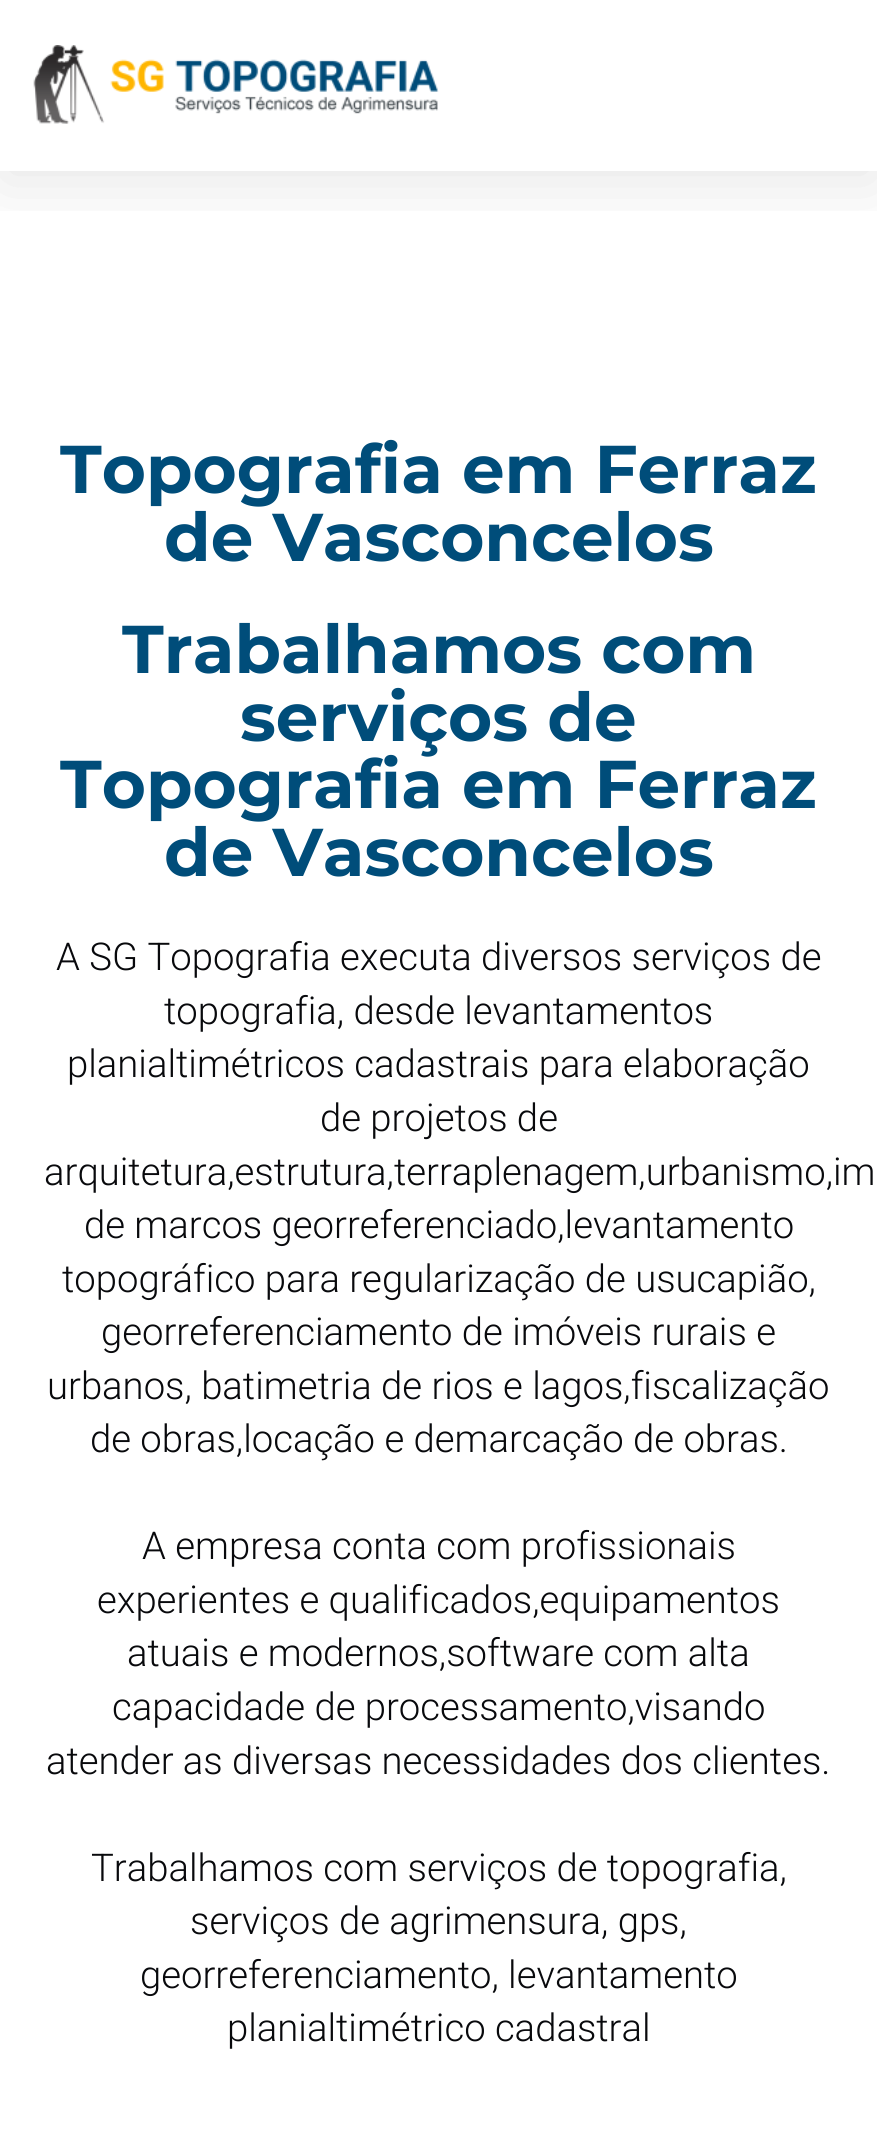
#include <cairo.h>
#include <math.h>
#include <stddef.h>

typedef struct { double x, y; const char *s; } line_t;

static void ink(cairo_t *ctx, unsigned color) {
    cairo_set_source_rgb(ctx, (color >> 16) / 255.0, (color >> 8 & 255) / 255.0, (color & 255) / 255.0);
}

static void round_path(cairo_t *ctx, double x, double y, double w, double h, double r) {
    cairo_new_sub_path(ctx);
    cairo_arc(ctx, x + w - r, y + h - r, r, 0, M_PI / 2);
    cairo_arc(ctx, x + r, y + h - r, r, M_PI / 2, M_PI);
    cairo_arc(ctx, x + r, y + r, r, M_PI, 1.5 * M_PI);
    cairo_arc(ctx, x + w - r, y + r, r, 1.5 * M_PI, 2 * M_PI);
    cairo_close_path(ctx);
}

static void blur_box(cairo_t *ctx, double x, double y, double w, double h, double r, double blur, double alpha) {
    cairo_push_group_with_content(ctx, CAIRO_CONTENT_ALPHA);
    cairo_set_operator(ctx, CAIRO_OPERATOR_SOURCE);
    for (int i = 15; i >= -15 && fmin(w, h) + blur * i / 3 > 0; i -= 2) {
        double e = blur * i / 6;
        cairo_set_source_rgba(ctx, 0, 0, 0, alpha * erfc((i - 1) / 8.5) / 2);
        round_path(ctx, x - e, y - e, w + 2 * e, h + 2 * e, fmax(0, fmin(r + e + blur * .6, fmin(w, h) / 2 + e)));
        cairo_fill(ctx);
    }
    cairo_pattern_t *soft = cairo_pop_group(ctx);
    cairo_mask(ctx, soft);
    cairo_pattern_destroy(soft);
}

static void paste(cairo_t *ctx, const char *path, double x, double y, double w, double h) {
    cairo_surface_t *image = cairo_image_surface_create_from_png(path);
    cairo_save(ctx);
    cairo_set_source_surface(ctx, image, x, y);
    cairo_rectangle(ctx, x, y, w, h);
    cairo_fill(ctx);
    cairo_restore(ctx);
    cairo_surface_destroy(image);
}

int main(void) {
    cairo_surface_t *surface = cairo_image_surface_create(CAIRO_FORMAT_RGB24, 877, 2134);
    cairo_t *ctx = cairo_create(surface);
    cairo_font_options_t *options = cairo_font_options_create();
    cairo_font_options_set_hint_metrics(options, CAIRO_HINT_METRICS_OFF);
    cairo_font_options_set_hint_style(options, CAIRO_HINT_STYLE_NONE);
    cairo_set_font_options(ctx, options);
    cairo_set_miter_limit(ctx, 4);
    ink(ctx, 0xFFFFFF);
    cairo_paint(ctx);
    cairo_save(ctx);
    cairo_rectangle(ctx, 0, 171, 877, 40);
    cairo_clip(ctx);
    ink(ctx, 0x000000);
    blur_box(ctx, 0, 11, 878, 171, 0, 34, 0.1);
    cairo_restore(ctx);
    paste(ctx, "media/1.png", 33, 45, 406, 79);
    cairo_select_font_face(ctx, "Montserrat", CAIRO_FONT_SLANT_NORMAL, CAIRO_FONT_WEIGHT_BOLD);
    cairo_set_font_size(ctx, 67.5);
    ink(ctx, 0x004D7A);
    {
        static const line_t items[] = {
            {60, 493, "Topografia em Ferraz"},
            {164, 561, "de Vasconcelos"},
            {122, 673, "Trabalhamos com"},
            {240, 741, "serviços de"},
            {60, 808, "Topografia em Ferraz"},
            {164, 876, "de Vasconcelos"},
        };
        for (size_t i = 0; i < sizeof items / sizeof *items; i++) {
            cairo_move_to(ctx, items[i].x, items[i].y);
            cairo_show_text(ctx, items[i].s);
        }
    }
    cairo_select_font_face(ctx, "Roboto Light", CAIRO_FONT_SLANT_NORMAL, CAIRO_FONT_WEIGHT_NORMAL);
    cairo_set_font_size(ctx, 38.25);
    ink(ctx, 0x08090C);
    {
        static const line_t items[] = {
            {56, 970, "A SG Topografia executa diversos serviços de"},
            {164, 1024, "topografia, desde levantamentos"},
            {67, 1077, "planialtimétricos cadastrais para elaboração"},
            {320, 1131, "de projetos de"},
            {44, 1185, "arquitetura,estrutura,terraplenagem,urbanismo,im"},
            {84, 1238, "de marcos georreferenciado,levantamento"},
            {62, 1292, "topográfico para regularização de usucapião,"},
            {101, 1345, "georreferenciamento de imóveis rurais e"},
            {47, 1399, "urbanos, batimetria de rios e lagos,fiscalização"},
            {90, 1452, "de obras,locação e demarcação de obras."},
            {142, 1559, "A empresa conta com profissionais"},
            {97, 1613, "experientes e qualificados,equipamentos"},
            {127, 1666, "atuais e modernos,software com alta"},
            {112, 1720, "capacidade de processamento,visando"},
            {46, 1774, "atender as diversas necessidades dos clientes."},
            {91, 1881, "Trabalhamos com serviços de topografia,"},
            {190, 1934, "serviços de agrimensura, gps,"},
            {140, 1988, "georreferenciamento, levantamento"},
            {227, 2041, "planialtimétrico cadastral"},
        };
        for (size_t i = 0; i < sizeof items / sizeof *items; i++) {
            cairo_move_to(ctx, items[i].x, items[i].y);
            cairo_show_text(ctx, items[i].s);
        }
    }
    cairo_surface_write_to_png(surface, "image.png");
    cairo_font_options_destroy(options);
    cairo_destroy(ctx);
    cairo_surface_destroy(surface);
    return 0;
}
